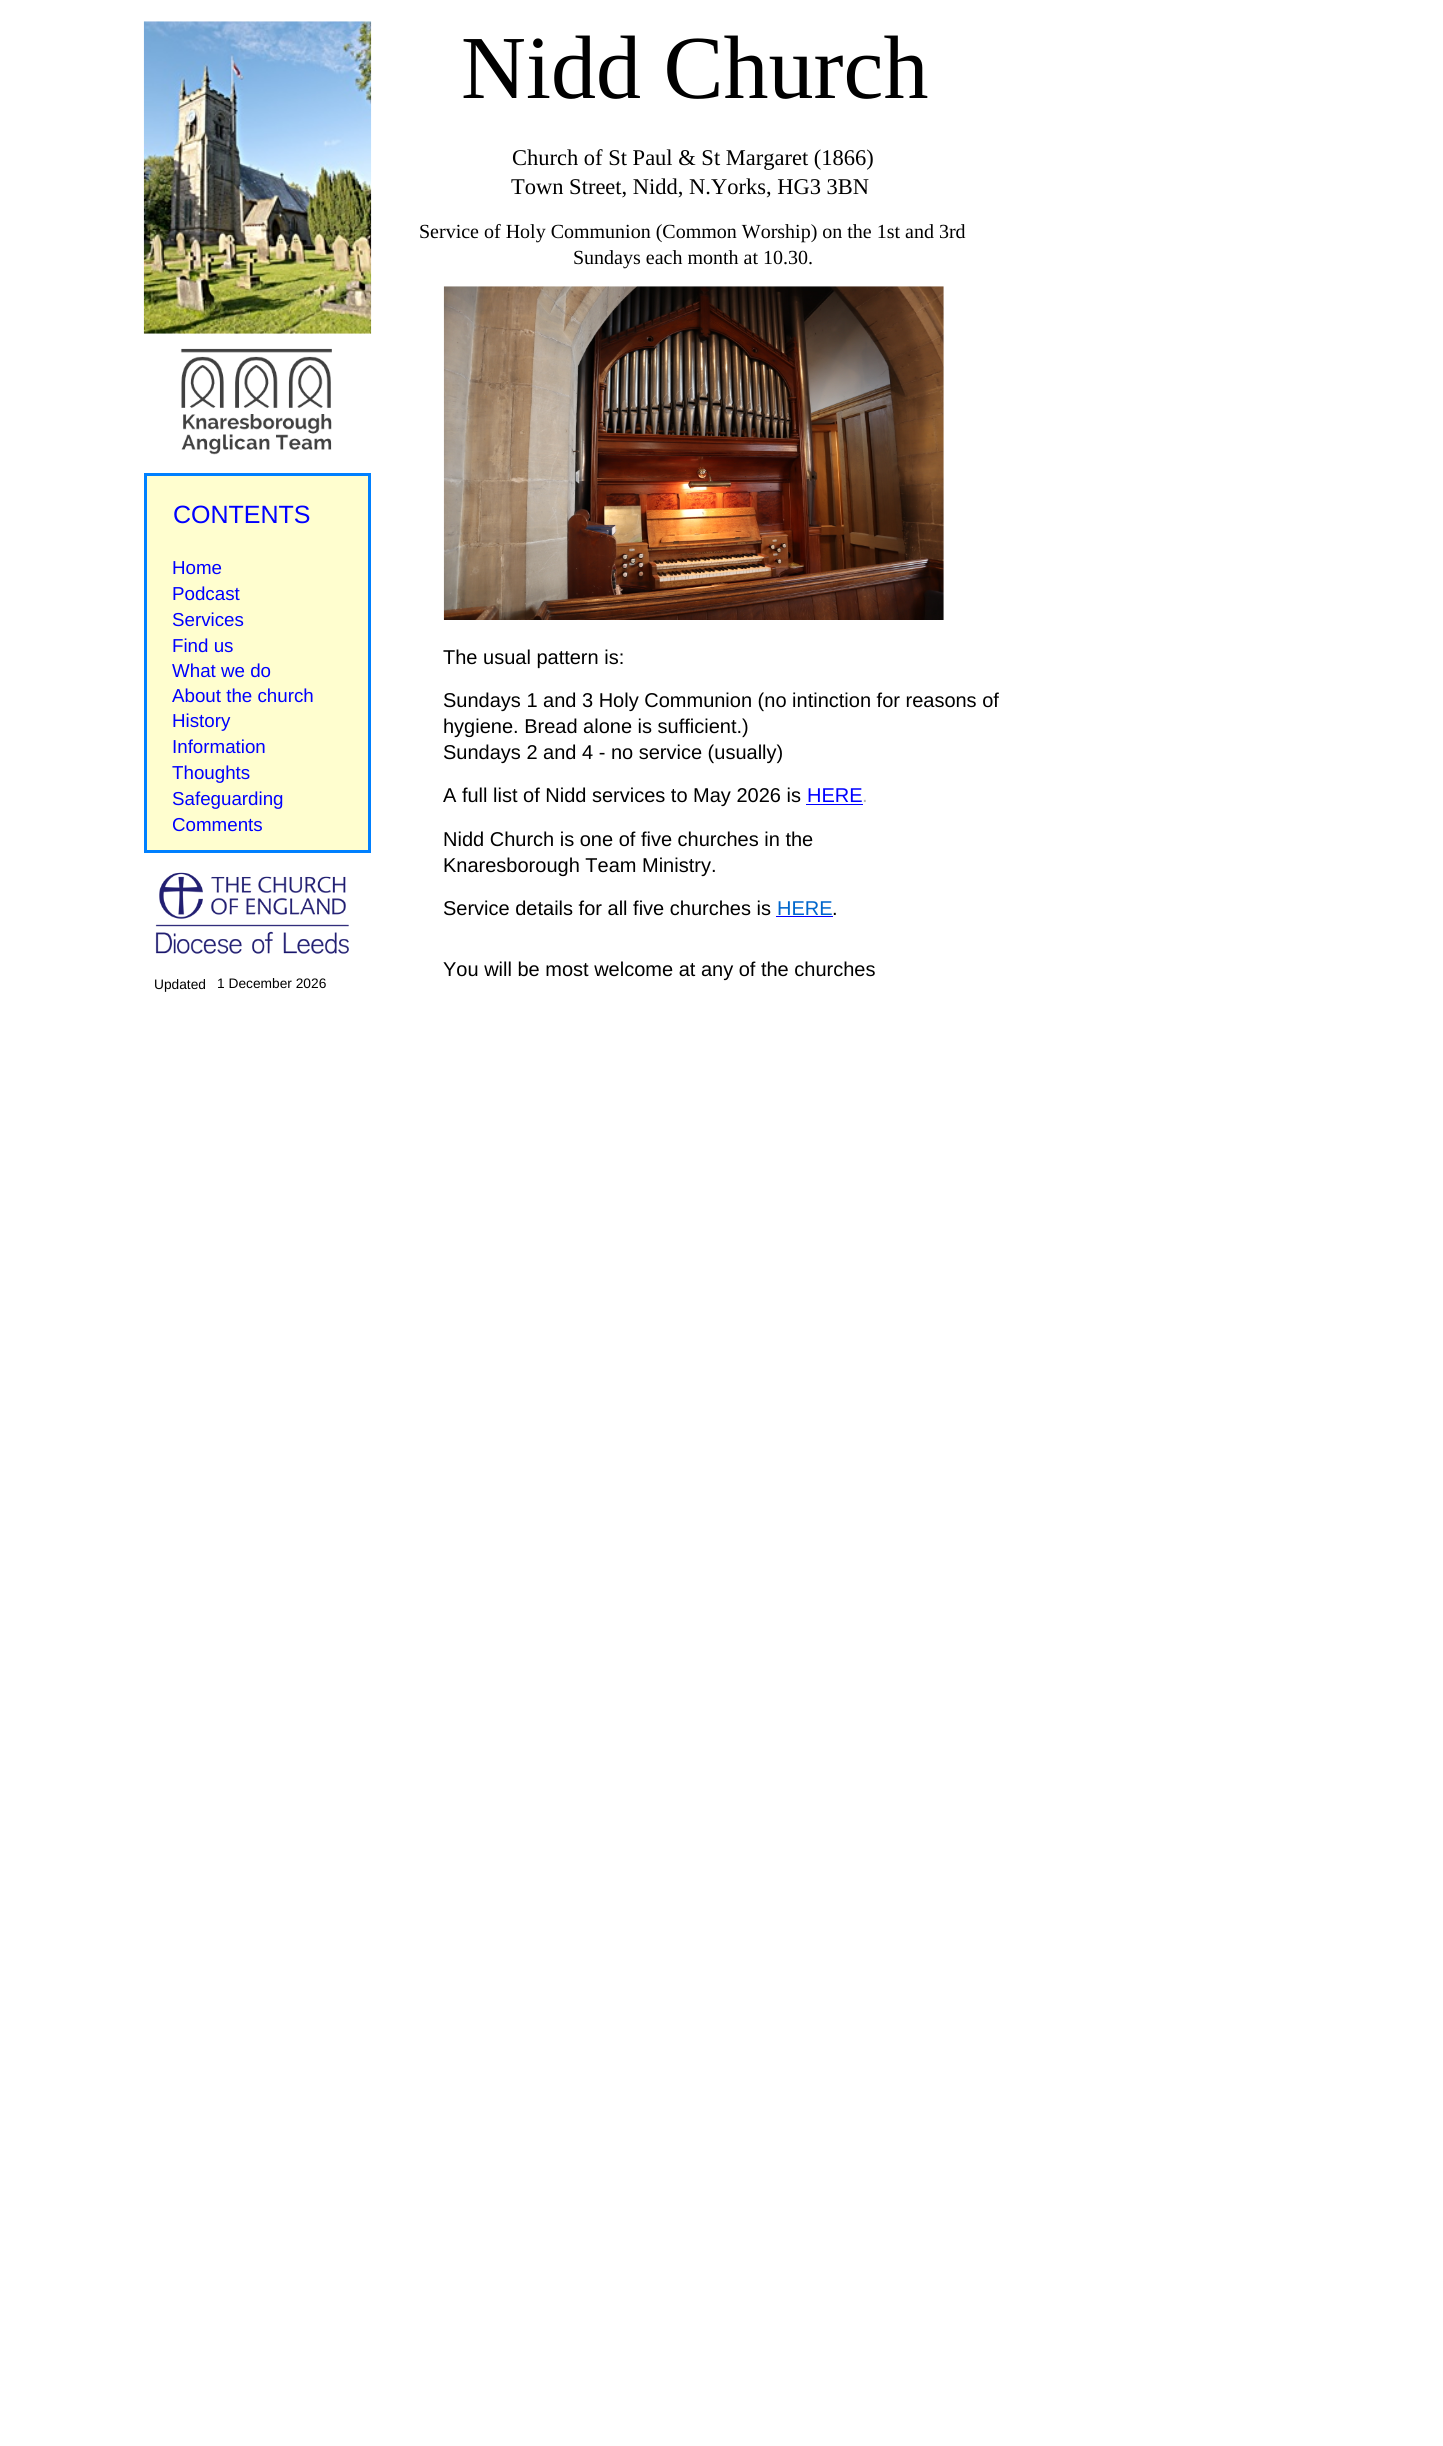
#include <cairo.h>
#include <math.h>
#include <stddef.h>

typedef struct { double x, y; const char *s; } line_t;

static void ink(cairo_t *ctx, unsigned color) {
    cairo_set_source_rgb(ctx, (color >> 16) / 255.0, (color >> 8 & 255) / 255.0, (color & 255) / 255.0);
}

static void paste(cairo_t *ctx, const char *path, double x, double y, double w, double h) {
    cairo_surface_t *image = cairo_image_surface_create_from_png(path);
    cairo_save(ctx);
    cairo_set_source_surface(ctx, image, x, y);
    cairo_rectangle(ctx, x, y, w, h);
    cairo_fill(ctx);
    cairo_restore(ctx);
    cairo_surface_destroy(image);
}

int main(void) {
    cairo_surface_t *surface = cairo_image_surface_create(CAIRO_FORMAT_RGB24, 1443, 2446);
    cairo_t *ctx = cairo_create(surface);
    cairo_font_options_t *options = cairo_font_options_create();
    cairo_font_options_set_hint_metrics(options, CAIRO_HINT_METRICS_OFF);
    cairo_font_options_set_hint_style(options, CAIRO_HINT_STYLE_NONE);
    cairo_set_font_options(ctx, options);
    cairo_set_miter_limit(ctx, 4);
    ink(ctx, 0xFFFFFF);
    cairo_paint(ctx);
    paste(ctx, "media/1.png", 143, 21, 229, 313);
    cairo_select_font_face(ctx, "Liberation Serif", CAIRO_FONT_SLANT_NORMAL, CAIRO_FONT_WEIGHT_NORMAL);
    cairo_set_font_size(ctx, 90);
    ink(ctx, 0x000000);
    cairo_move_to(ctx, 461, 98);
    cairo_show_text(ctx, "Nidd Church");
    cairo_set_font_size(ctx, 22.5);
    cairo_move_to(ctx, 512, 165);
    cairo_show_text(ctx, "Church of St Paul & St Margaret (1866)");
    cairo_move_to(ctx, 511, 194);
    cairo_show_text(ctx, "Town Street, Nidd, N.Yorks, HG3 3BN");
    cairo_set_font_size(ctx, 20);
    cairo_move_to(ctx, 419, 238);
    cairo_show_text(ctx, "Service of Holy Communion (Common Worship) on the 1st and 3rd");
    cairo_move_to(ctx, 573, 264);
    cairo_show_text(ctx, "Sundays each month at 10.30.");
    paste(ctx, "media/2.png", 180, 348, 152, 107);
    ink(ctx, 0xFFFECF);
    cairo_rectangle(ctx, 145.5, 474.5, 224, 377);
    cairo_fill_preserve(ctx);
    ink(ctx, 0x0080FF);
    cairo_set_line_width(ctx, 3);
    cairo_stroke(ctx);
    cairo_select_font_face(ctx, "Liberation Sans", CAIRO_FONT_SLANT_NORMAL, CAIRO_FONT_WEIGHT_NORMAL);
    cairo_set_font_size(ctx, 25);
    ink(ctx, 0x0000FF);
    cairo_move_to(ctx, 173, 523);
    cairo_show_text(ctx, "CONTENTS");
    cairo_set_font_size(ctx, 18.75);
    {
        static const line_t items[] = {
            {172, 574, "Home"},
            {172, 600, "Podcast"},
            {172, 626, "Services"},
            {172, 652, "Find us"},
            {172, 677, "What we do"},
            {172, 702, "About the church"},
            {172, 727, "History"},
            {172, 753, "Information"},
            {172, 779, "Thoughts"},
            {172, 805, "Safeguarding"},
            {172, 831, "Comments"},
        };
        for (size_t i = 0; i < sizeof items / sizeof *items; i++) {
            cairo_move_to(ctx, items[i].x, items[i].y);
            cairo_show_text(ctx, items[i].s);
        }
    }
    paste(ctx, "media/3.png", 155, 872, 194, 82);
    cairo_set_font_size(ctx, 13.75);
    ink(ctx, 0x000000);
    cairo_move_to(ctx, 154, 989);
    cairo_show_text(ctx, "Updated");
    cairo_move_to(ctx, 217, 988);
    cairo_show_text(ctx, "1 December 2026");
    paste(ctx, "media/4.png", 443, 286, 501, 334);
    cairo_set_font_size(ctx, 20);
    {
        static const line_t items[] = {
            {443, 664, "The usual pattern is:"},
            {443, 707, "Sundays 1 and 3 Holy Communion (no intinction for reasons of"},
            {443, 733, "hygiene. Bread alone is sufficient.)"},
            {443, 759, "Sundays 2 and 4 - no service (usually)"},
            {443, 802, "A full list of Nidd services to May 2026 is"},
        };
        for (size_t i = 0; i < sizeof items / sizeof *items; i++) {
            cairo_move_to(ctx, items[i].x, items[i].y);
            cairo_show_text(ctx, items[i].s);
        }
    }
    ink(ctx, 0x0000FF);
    cairo_move_to(ctx, 807, 802);
    cairo_show_text(ctx, "HERE");
    ink(ctx, 0xB4B4B4);
    cairo_move_to(ctx, 862, 802);
    cairo_show_text(ctx, ".");
    ink(ctx, 0x0000FF);
    cairo_rectangle(ctx, 806, 804, 57, 1);
    cairo_fill(ctx);
    ink(ctx, 0x000000);
    {
        static const line_t items[] = {
            {443, 846, "Nidd Church is one of five churches in the"},
            {443, 872, "Knaresborough Team Ministry."},
            {443, 915, "Service details for all five churches is"},
        };
        for (size_t i = 0; i < sizeof items / sizeof *items; i++) {
            cairo_move_to(ctx, items[i].x, items[i].y);
            cairo_show_text(ctx, items[i].s);
        }
    }
    ink(ctx, 0x0066CC);
    cairo_move_to(ctx, 777, 915);
    cairo_show_text(ctx, "HERE");
    ink(ctx, 0x000000);
    cairo_move_to(ctx, 832, 915);
    cairo_show_text(ctx, ".");
    ink(ctx, 0x0000FF);
    cairo_rectangle(ctx, 776, 916, 57, 1);
    cairo_fill(ctx);
    ink(ctx, 0x000000);
    cairo_move_to(ctx, 443, 976);
    cairo_show_text(ctx, "You will be most welcome at any of the churches");
    cairo_surface_write_to_png(surface, "image.png");
    cairo_font_options_destroy(options);
    cairo_destroy(ctx);
    cairo_surface_destroy(surface);
    return 0;
}
